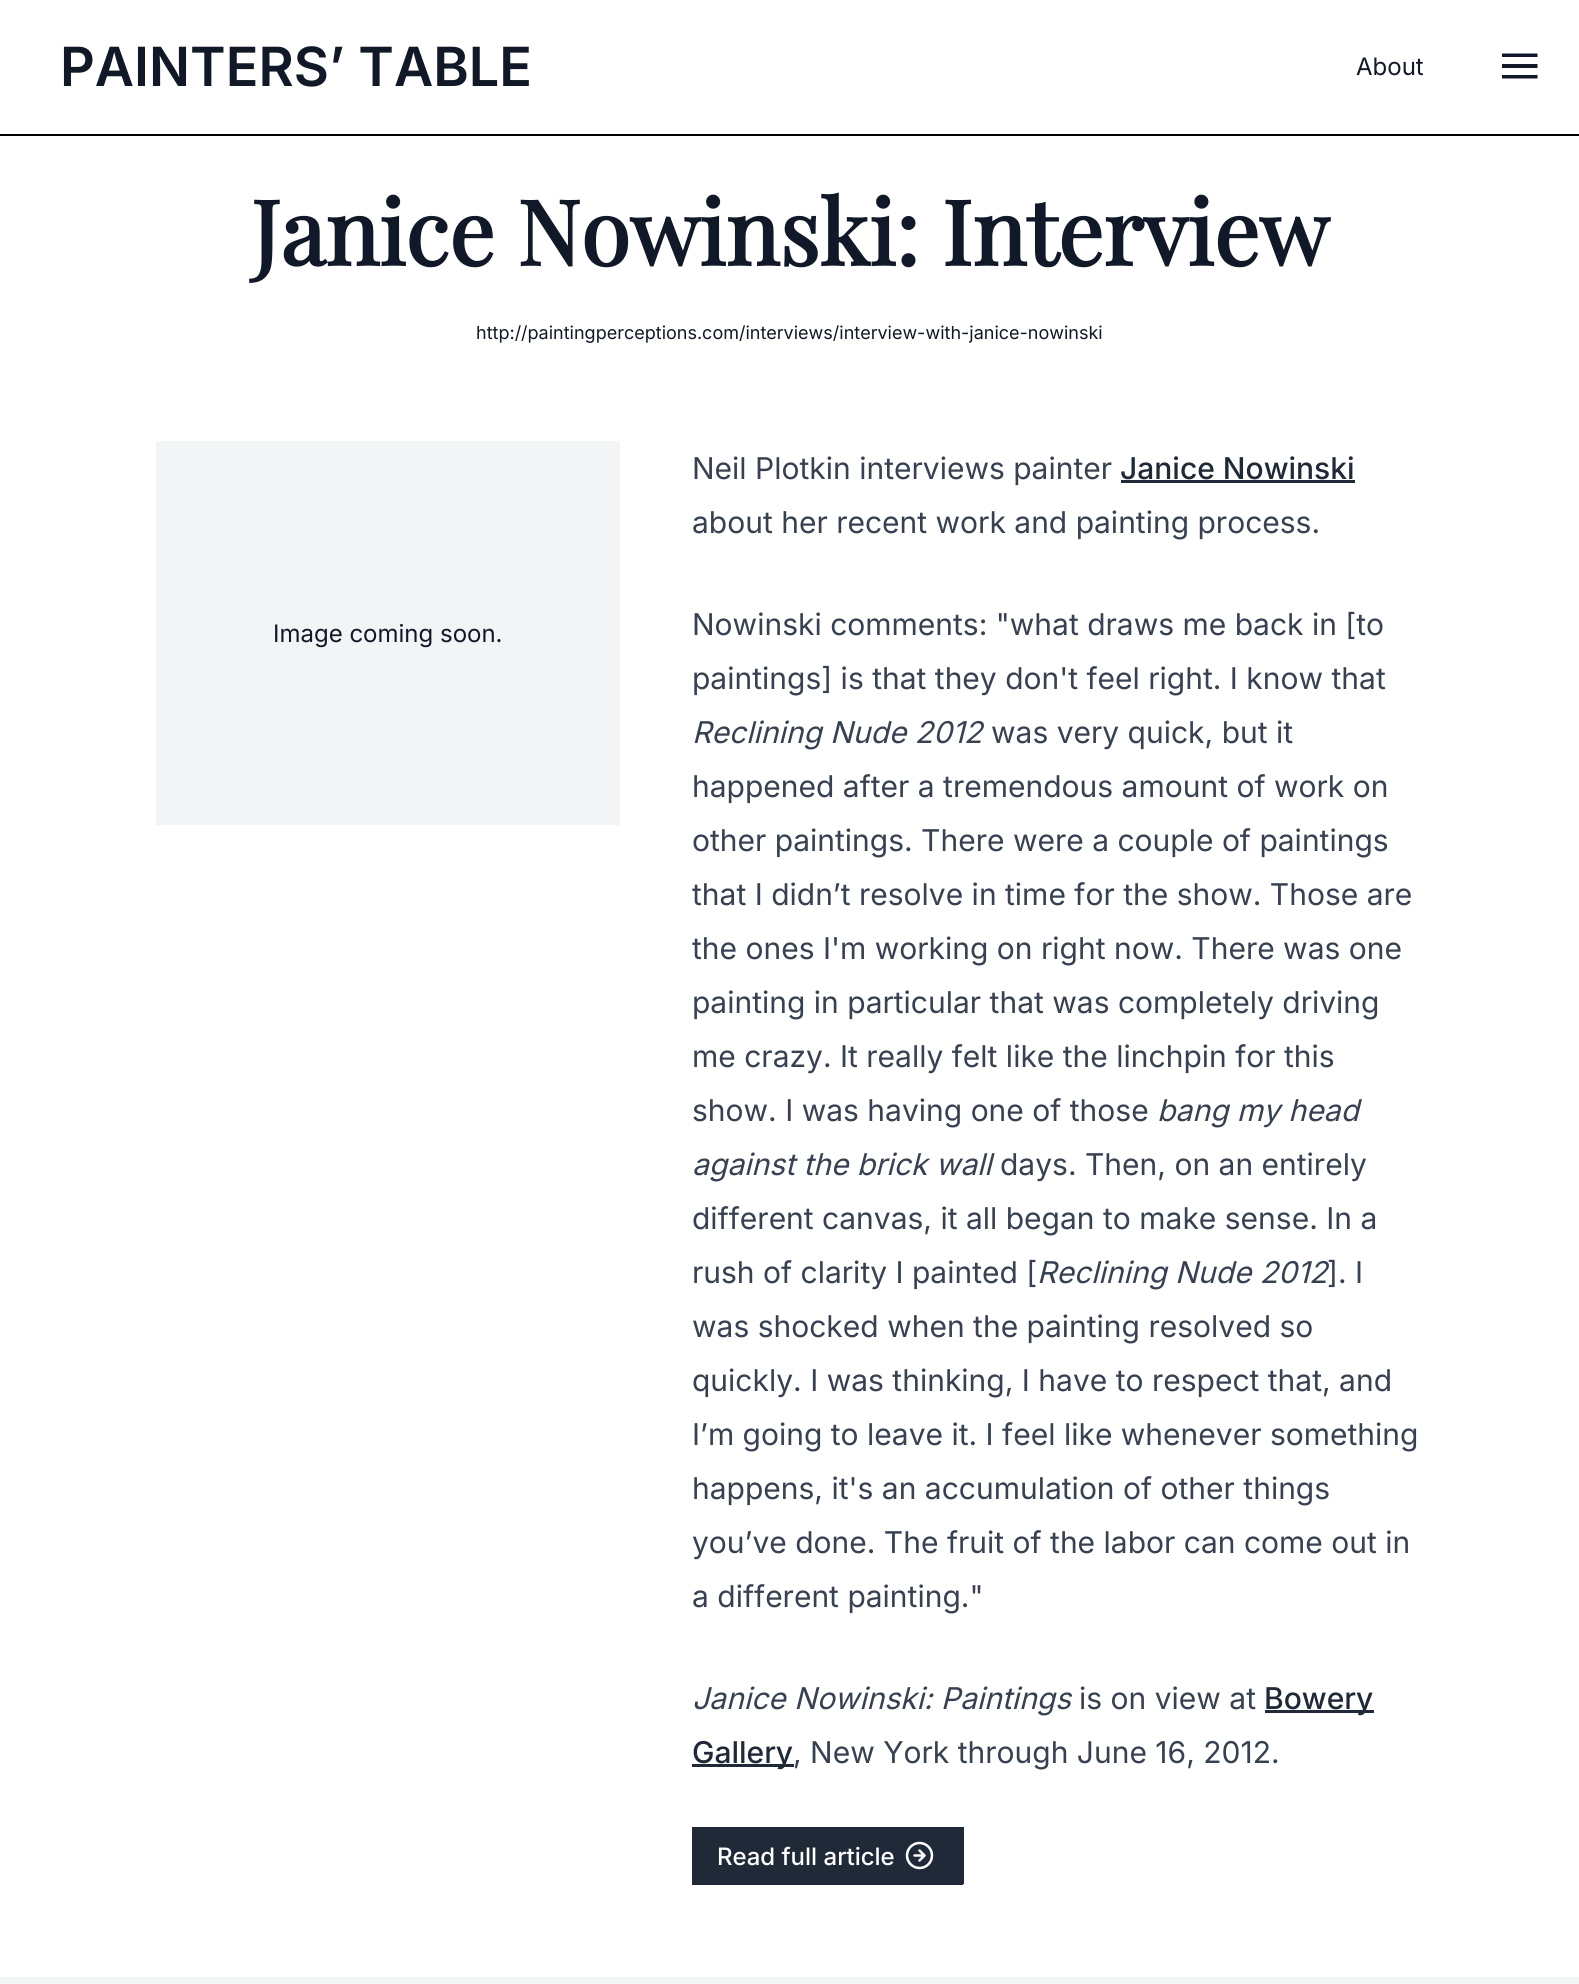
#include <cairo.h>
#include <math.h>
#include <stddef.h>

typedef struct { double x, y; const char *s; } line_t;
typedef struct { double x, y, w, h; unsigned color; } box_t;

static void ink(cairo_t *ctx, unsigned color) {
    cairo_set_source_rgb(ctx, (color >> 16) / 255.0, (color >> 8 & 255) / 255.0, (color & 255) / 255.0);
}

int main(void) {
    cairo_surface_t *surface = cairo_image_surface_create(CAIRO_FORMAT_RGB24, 1579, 1984);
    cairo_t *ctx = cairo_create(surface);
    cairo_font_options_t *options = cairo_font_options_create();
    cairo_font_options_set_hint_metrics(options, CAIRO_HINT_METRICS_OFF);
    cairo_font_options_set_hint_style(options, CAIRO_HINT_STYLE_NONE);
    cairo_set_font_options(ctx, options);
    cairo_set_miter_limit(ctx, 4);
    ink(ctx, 0xFFFFFF);
    cairo_paint(ctx);
    ink(ctx, 0x000000);
    cairo_rectangle(ctx, 0, 134, 1579, 2);
    cairo_fill(ctx);
    cairo_select_font_face(ctx, "Inter SemiBold", CAIRO_FONT_SLANT_NORMAL, CAIRO_FONT_WEIGHT_NORMAL);
    cairo_set_font_size(ctx, 54);
    ink(ctx, 0x111827);
    cairo_move_to(ctx, 60, 86);
    cairo_show_text(ctx, "PAINTERS’ TABLE");
    cairo_select_font_face(ctx, "Inter", CAIRO_FONT_SLANT_NORMAL, CAIRO_FONT_WEIGHT_NORMAL);
    cairo_set_font_size(ctx, 24);
    cairo_move_to(ctx, 1356, 75);
    cairo_show_text(ctx, "About");
    cairo_save(ctx);
    cairo_rectangle(ctx, 1502, 48, 36, 36);
    cairo_clip(ctx);
    cairo_set_fill_rule(ctx, CAIRO_FILL_RULE_EVEN_ODD);
    cairo_new_path(ctx);
    cairo_move_to(ctx, 1501.5, 53.5);
    cairo_line_to(ctx, 1537.5, 53.5);
    cairo_line_to(ctx, 1537.5, 57);
    cairo_line_to(ctx, 1501.5, 57);
    cairo_close_path(ctx);
    cairo_move_to(ctx, 1501.5, 64);
    cairo_line_to(ctx, 1537.5, 64);
    cairo_line_to(ctx, 1537.5, 68);
    cairo_line_to(ctx, 1501.5, 68);
    cairo_close_path(ctx);
    cairo_move_to(ctx, 1501.5, 75);
    cairo_line_to(ctx, 1537.5, 75);
    cairo_line_to(ctx, 1537.5, 78.5);
    cairo_line_to(ctx, 1501.5, 78.5);
    cairo_close_path(ctx);
    cairo_fill(ctx);
    cairo_restore(ctx);
    cairo_select_font_face(ctx, "Playfair Display", CAIRO_FONT_SLANT_NORMAL, CAIRO_FONT_WEIGHT_BOLD);
    cairo_set_font_size(ctx, 90);
    cairo_move_to(ctx, 251, 266);
    cairo_show_text(ctx, "Janice Nowinski: Interview");
    cairo_select_font_face(ctx, "Inter", CAIRO_FONT_SLANT_NORMAL, CAIRO_FONT_WEIGHT_NORMAL);
    cairo_set_font_size(ctx, 18);
    cairo_move_to(ctx, 476, 339);
    cairo_show_text(ctx, "http://paintingperceptions.com/interviews/interview-with-janice-nowinski");
    ink(ctx, 0xF3F4F6);
    cairo_rectangle(ctx, 156, 441, 464, 384);
    cairo_fill(ctx);
    cairo_set_font_size(ctx, 24);
    ink(ctx, 0x111827);
    cairo_move_to(ctx, 273, 642);
    cairo_show_text(ctx, "Image coming soon.");
    cairo_set_font_size(ctx, 30);
    ink(ctx, 0x374151);
    cairo_move_to(ctx, 692, 479);
    cairo_show_text(ctx, "Neil Plotkin interviews painter");
    cairo_select_font_face(ctx, "Inter Medium", CAIRO_FONT_SLANT_NORMAL, CAIRO_FONT_WEIGHT_NORMAL);
    ink(ctx, 0x1F2937);
    cairo_move_to(ctx, 1120, 479);
    cairo_show_text(ctx, "Janice Nowinski");
    cairo_rectangle(ctx, 1121, 480, 234, 3);
    cairo_fill(ctx);
    cairo_select_font_face(ctx, "Inter", CAIRO_FONT_SLANT_NORMAL, CAIRO_FONT_WEIGHT_NORMAL);
    ink(ctx, 0x374151);
    {
        static const line_t items[] = {
            {692, 533, "about her recent work and painting process."},
            {692, 635, "Nowinski comments: \"what draws me back in [to"},
            {692, 689, "paintings] is that they don't feel right. I know that"},
        };
        for (size_t i = 0; i < sizeof items / sizeof *items; i++) {
            cairo_move_to(ctx, items[i].x, items[i].y);
            cairo_show_text(ctx, items[i].s);
        }
    }
    cairo_select_font_face(ctx, "Inter", CAIRO_FONT_SLANT_ITALIC, CAIRO_FONT_WEIGHT_NORMAL);
    cairo_move_to(ctx, 692, 743);
    cairo_show_text(ctx, "Reclining Nude 2012");
    cairo_select_font_face(ctx, "Inter", CAIRO_FONT_SLANT_NORMAL, CAIRO_FONT_WEIGHT_NORMAL);
    {
        static const line_t items[] = {
            {991, 743, "was very quick, but it"},
            {692, 797, "happened after a tremendous amount of work on"},
            {692, 851, "other paintings. There were a couple of paintings"},
            {692, 905, "that I didn’t resolve in time for the show. Those are"},
            {692, 959, "the ones I'm working on right now. There was one"},
            {692, 1013, "painting in particular that was completely driving"},
            {692, 1067, "me crazy. It really felt like the linchpin for this"},
            {692, 1121, "show. I was having one of those"},
        };
        for (size_t i = 0; i < sizeof items / sizeof *items; i++) {
            cairo_move_to(ctx, items[i].x, items[i].y);
            cairo_show_text(ctx, items[i].s);
        }
    }
    cairo_select_font_face(ctx, "Inter", CAIRO_FONT_SLANT_ITALIC, CAIRO_FONT_WEIGHT_NORMAL);
    cairo_move_to(ctx, 1157, 1121);
    cairo_show_text(ctx, "bang my head");
    cairo_move_to(ctx, 692, 1175);
    cairo_show_text(ctx, "against the brick wall");
    cairo_select_font_face(ctx, "Inter", CAIRO_FONT_SLANT_NORMAL, CAIRO_FONT_WEIGHT_NORMAL);
    {
        static const line_t items[] = {
            {1000, 1175, "days. Then, on an entirely"},
            {692, 1229, "different canvas, it all began to make sense. In a"},
            {692, 1283, "rush of clarity I painted ["},
        };
        for (size_t i = 0; i < sizeof items / sizeof *items; i++) {
            cairo_move_to(ctx, items[i].x, items[i].y);
            cairo_show_text(ctx, items[i].s);
        }
    }
    cairo_select_font_face(ctx, "Inter", CAIRO_FONT_SLANT_ITALIC, CAIRO_FONT_WEIGHT_NORMAL);
    cairo_move_to(ctx, 1037, 1283);
    cairo_show_text(ctx, "Reclining Nude 2012");
    cairo_select_font_face(ctx, "Inter", CAIRO_FONT_SLANT_NORMAL, CAIRO_FONT_WEIGHT_NORMAL);
    {
        static const line_t items[] = {
            {1327, 1283, "]. I"},
            {692, 1337, "was shocked when the painting resolved so"},
            {692, 1391, "quickly. I was thinking, I have to respect that, and"},
            {692, 1445, "I’m going to leave it. I feel like whenever something"},
            {692, 1499, "happens, it's an accumulation of other things"},
            {692, 1553, "you’ve done. The fruit of the labor can come out in"},
            {692, 1607, "a different painting.\""},
        };
        for (size_t i = 0; i < sizeof items / sizeof *items; i++) {
            cairo_move_to(ctx, items[i].x, items[i].y);
            cairo_show_text(ctx, items[i].s);
        }
    }
    cairo_select_font_face(ctx, "Inter", CAIRO_FONT_SLANT_ITALIC, CAIRO_FONT_WEIGHT_NORMAL);
    cairo_move_to(ctx, 692, 1709);
    cairo_show_text(ctx, "Janice Nowinski: Paintings");
    cairo_select_font_face(ctx, "Inter", CAIRO_FONT_SLANT_NORMAL, CAIRO_FONT_WEIGHT_NORMAL);
    cairo_move_to(ctx, 1079, 1709);
    cairo_show_text(ctx, "is on view at");
    ink(ctx, 0x1F2937);
    cairo_rectangle(ctx, 1265, 1710, 109, 3);
    cairo_fill(ctx);
    cairo_select_font_face(ctx, "Inter Medium", CAIRO_FONT_SLANT_NORMAL, CAIRO_FONT_WEIGHT_NORMAL);
    cairo_move_to(ctx, 1264, 1709);
    cairo_show_text(ctx, "Bowery");
    cairo_rectangle(ctx, 692, 1764, 102, 3);
    cairo_fill(ctx);
    cairo_move_to(ctx, 692, 1763);
    cairo_show_text(ctx, "Gallery");
    cairo_select_font_face(ctx, "Inter", CAIRO_FONT_SLANT_NORMAL, CAIRO_FONT_WEIGHT_NORMAL);
    ink(ctx, 0x374151);
    cairo_move_to(ctx, 793, 1763);
    cairo_show_text(ctx, ", New York through June 16, 2012.");
    {
        static const box_t items[] = {
            {692, 1827, 210, 58, 0x1F2937},
            {902, 1827, 60, 56, 0x1F2937},
            {962, 1827, 2, 57, 0x1F2937},
            {902, 1883, 61, 2, 0x1F2937},
        };
        for (size_t i = 0; i < sizeof items / sizeof *items; i++) {
            ink(ctx, items[i].color);
            cairo_rectangle(ctx, items[i].x, items[i].y, items[i].w, items[i].h);
            cairo_fill(ctx);
        }
    }
    cairo_select_font_face(ctx, "Inter Medium", CAIRO_FONT_SLANT_NORMAL, CAIRO_FONT_WEIGHT_NORMAL);
    cairo_set_font_size(ctx, 24);
    ink(ctx, 0xFFFFFF);
    cairo_move_to(ctx, 717, 1865);
    cairo_show_text(ctx, "Read full article");
    cairo_new_path(ctx);
    cairo_arc(ctx, 919.5, 1855.5, 12.5, 0, 2 * M_PI);
    cairo_set_line_width(ctx, 2.5);
    cairo_stroke(ctx);
    cairo_new_path(ctx);
    cairo_move_to(ctx, 919.5, 1860.5);
    cairo_line_to(ctx, 924.5, 1855.5);
    cairo_line_to(ctx, 919.5, 1850.5);
    cairo_move_to(ctx, 914.5, 1855.5);
    cairo_line_to(ctx, 924.5, 1855.5);
    cairo_set_line_cap(ctx, CAIRO_LINE_CAP_ROUND);
    cairo_set_line_join(ctx, CAIRO_LINE_JOIN_ROUND);
    cairo_stroke(ctx);
    ink(ctx, 0xF3F4F6);
    cairo_rectangle(ctx, 0, 1977, 1579, 7);
    cairo_fill(ctx);
    cairo_surface_write_to_png(surface, "image.png");
    cairo_font_options_destroy(options);
    cairo_destroy(ctx);
    cairo_surface_destroy(surface);
    return 0;
}
